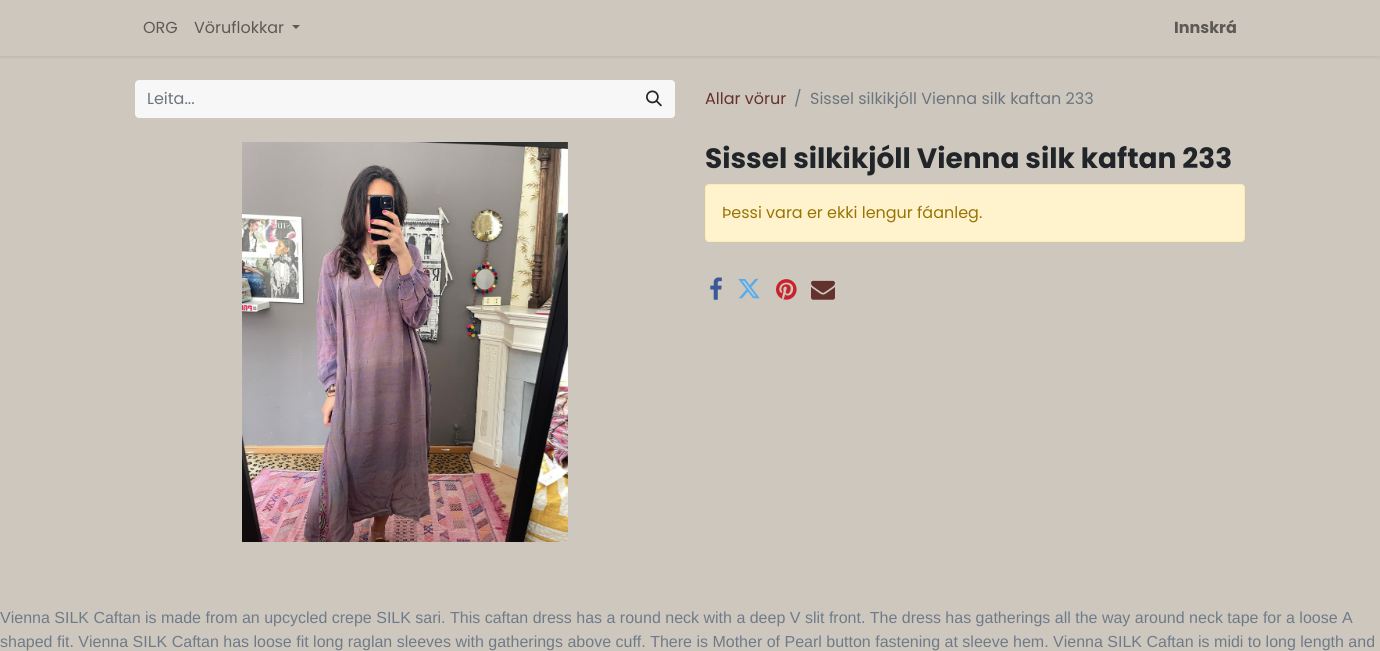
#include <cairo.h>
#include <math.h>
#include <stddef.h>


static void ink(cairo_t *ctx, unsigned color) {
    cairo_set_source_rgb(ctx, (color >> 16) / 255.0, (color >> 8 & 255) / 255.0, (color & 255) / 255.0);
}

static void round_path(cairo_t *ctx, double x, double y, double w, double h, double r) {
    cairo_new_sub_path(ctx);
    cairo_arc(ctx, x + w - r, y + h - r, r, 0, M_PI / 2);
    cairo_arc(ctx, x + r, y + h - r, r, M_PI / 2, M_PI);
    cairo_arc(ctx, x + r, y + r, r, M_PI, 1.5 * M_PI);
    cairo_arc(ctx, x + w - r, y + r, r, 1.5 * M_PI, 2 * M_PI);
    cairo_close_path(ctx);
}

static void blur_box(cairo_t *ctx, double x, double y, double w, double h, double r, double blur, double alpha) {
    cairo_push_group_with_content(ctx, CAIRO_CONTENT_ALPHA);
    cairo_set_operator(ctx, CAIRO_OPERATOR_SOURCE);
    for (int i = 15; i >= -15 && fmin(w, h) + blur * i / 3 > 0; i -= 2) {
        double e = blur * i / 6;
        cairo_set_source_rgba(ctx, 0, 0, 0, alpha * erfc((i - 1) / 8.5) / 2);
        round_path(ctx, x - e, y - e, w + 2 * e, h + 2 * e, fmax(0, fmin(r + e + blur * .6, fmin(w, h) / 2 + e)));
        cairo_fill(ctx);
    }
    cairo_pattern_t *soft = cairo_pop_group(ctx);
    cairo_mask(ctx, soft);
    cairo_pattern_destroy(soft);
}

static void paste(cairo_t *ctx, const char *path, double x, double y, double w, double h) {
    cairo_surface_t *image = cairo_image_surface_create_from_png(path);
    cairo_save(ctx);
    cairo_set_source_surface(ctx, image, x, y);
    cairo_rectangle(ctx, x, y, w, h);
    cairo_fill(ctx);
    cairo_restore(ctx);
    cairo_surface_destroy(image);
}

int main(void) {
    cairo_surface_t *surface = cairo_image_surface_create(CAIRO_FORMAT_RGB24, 1380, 651);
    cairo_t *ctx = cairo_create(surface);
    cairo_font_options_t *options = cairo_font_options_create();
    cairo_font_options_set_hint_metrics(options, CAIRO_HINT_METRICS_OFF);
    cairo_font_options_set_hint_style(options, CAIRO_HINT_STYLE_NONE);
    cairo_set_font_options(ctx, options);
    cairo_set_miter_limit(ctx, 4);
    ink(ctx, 0xCEC7BD);
    cairo_paint(ctx);
    cairo_save(ctx);
    cairo_rectangle(ctx, 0, 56, 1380, 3);
    cairo_clip(ctx);
    ink(ctx, 0x000000);
    blur_box(ctx, 0, 2, 1380, 56, 0, 2, 0.07);
    cairo_restore(ctx);
    cairo_select_font_face(ctx, "Poppins", CAIRO_FONT_SLANT_NORMAL, CAIRO_FONT_WEIGHT_NORMAL);
    cairo_set_font_size(ctx, 16);
    ink(ctx, 0x5D5A55);
    cairo_move_to(ctx, 143, 33);
    cairo_show_text(ctx, "ORG");
    cairo_move_to(ctx, 194, 33);
    cairo_show_text(ctx, "Vöruflokkar");
    cairo_new_path(ctx);
    cairo_move_to(ctx, 292, 25);
    cairo_line_to(ctx, 300, 25);
    cairo_line_to(ctx, 296, 29);
    cairo_close_path(ctx);
    cairo_fill(ctx);
    cairo_select_font_face(ctx, "Poppins", CAIRO_FONT_SLANT_NORMAL, CAIRO_FONT_WEIGHT_BOLD);
    cairo_move_to(ctx, 1174, 33);
    cairo_show_text(ctx, "Innskrá");
    ink(ctx, 0xF7F7F7);
    cairo_new_path(ctx);
    cairo_move_to(ctx, 139, 80);
    cairo_line_to(ctx, 634, 80);
    cairo_line_to(ctx, 634, 118);
    cairo_line_to(ctx, 139, 118);
    cairo_curve_to(ctx, 137, 118, 135, 116, 135, 114);
    cairo_line_to(ctx, 135, 84);
    cairo_curve_to(ctx, 135, 82, 137, 80, 139, 80);
    cairo_close_path(ctx);
    cairo_fill(ctx);
    cairo_select_font_face(ctx, "Poppins", CAIRO_FONT_SLANT_NORMAL, CAIRO_FONT_WEIGHT_NORMAL);
    ink(ctx, 0x6C757D);
    cairo_move_to(ctx, 147, 104);
    cairo_show_text(ctx, "Leita...");
    ink(ctx, 0xF7F7F7);
    cairo_new_path(ctx);
    cairo_move_to(ctx, 633.5, 80.5);
    cairo_line_to(ctx, 671, 80.5);
    cairo_curve_to(ctx, 673, 80.5, 674.5, 82, 674.5, 84);
    cairo_line_to(ctx, 674.5, 114);
    cairo_curve_to(ctx, 674.5, 116, 673, 117.5, 671, 117.5);
    cairo_line_to(ctx, 633.5, 117.5);
    cairo_close_path(ctx);
    cairo_fill_preserve(ctx);
    cairo_set_line_width(ctx, 1);
    cairo_stroke(ctx);
    paste(ctx, "media/1.png", 646, 90, 16, 17);
    ink(ctx, 0x64322E);
    cairo_move_to(ctx, 705, 104);
    cairo_show_text(ctx, "Allar vörur");
    ink(ctx, 0x6C757D);
    cairo_move_to(ctx, 794, 104);
    cairo_show_text(ctx, "/");
    cairo_move_to(ctx, 810, 104);
    cairo_show_text(ctx, "Sissel silkikjóll Vienna silk kaftan 233");
    paste(ctx, "media/2.png", 242, 142, 326, 400);
    cairo_select_font_face(ctx, "Poppins", CAIRO_FONT_SLANT_NORMAL, CAIRO_FONT_WEIGHT_BOLD);
    cairo_set_font_size(ctx, 28);
    ink(ctx, 0x212529);
    cairo_move_to(ctx, 705, 168);
    cairo_show_text(ctx, "Sissel silkikjóll Vienna silk kaftan 233");
    ink(ctx, 0xFFF3CD);
    round_path(ctx, 705.5, 184.5, 539, 57, 3.5);
    cairo_fill_preserve(ctx);
    ink(ctx, 0xFFECB5);
    cairo_stroke(ctx);
    cairo_select_font_face(ctx, "Poppins", CAIRO_FONT_SLANT_NORMAL, CAIRO_FONT_WEIGHT_NORMAL);
    cairo_set_font_size(ctx, 16);
    ink(ctx, 0x997404);
    cairo_move_to(ctx, 722, 218);
    cairo_show_text(ctx, "Þessi vara er ekki lengur fáanleg.");
    paste(ctx, "media/3.png", 710, 277, 12, 23);
    paste(ctx, "media/4.png", 738, 278, 22, 21);
    paste(ctx, "media/5.png", 776, 279, 21, 21);
    paste(ctx, "media/6.png", 811, 280, 24, 20);
    cairo_select_font_face(ctx, "Liberation Sans", CAIRO_FONT_SLANT_NORMAL, CAIRO_FONT_WEIGHT_NORMAL);
    ink(ctx, 0x6F7B8A);
    cairo_move_to(ctx, 0, 623);
    cairo_show_text(ctx, "Vienna SILK Caftan is made from an upcycled crepe SILK sari. This caftan dress has a round neck with a deep V slit front. The dress has gatherings all the way around neck tape for a loose A");
    cairo_move_to(ctx, 0, 647);
    cairo_show_text(ctx, "shaped fit. Vienna SILK Caftan has loose fit long raglan sleeves with gatherings above cuff. There is Mother of Pearl button fastening at sleeve hem. Vienna SILK Caftan is midi to long length and");
    cairo_surface_write_to_png(surface, "image.png");
    cairo_font_options_destroy(options);
    cairo_destroy(ctx);
    cairo_surface_destroy(surface);
    return 0;
}
